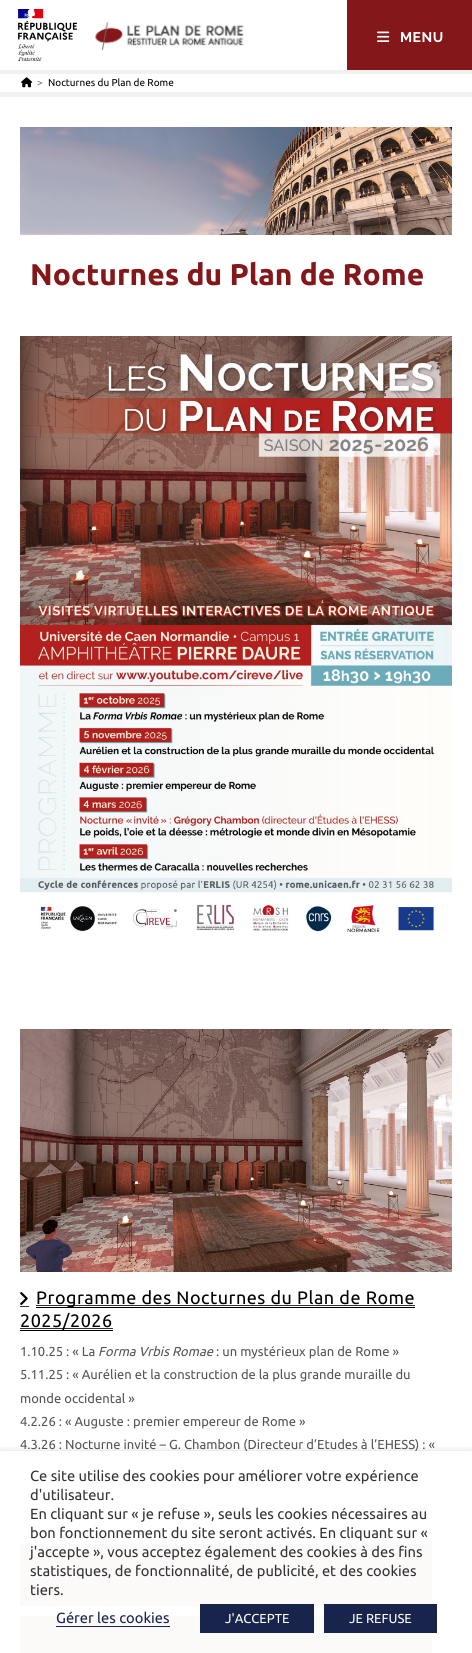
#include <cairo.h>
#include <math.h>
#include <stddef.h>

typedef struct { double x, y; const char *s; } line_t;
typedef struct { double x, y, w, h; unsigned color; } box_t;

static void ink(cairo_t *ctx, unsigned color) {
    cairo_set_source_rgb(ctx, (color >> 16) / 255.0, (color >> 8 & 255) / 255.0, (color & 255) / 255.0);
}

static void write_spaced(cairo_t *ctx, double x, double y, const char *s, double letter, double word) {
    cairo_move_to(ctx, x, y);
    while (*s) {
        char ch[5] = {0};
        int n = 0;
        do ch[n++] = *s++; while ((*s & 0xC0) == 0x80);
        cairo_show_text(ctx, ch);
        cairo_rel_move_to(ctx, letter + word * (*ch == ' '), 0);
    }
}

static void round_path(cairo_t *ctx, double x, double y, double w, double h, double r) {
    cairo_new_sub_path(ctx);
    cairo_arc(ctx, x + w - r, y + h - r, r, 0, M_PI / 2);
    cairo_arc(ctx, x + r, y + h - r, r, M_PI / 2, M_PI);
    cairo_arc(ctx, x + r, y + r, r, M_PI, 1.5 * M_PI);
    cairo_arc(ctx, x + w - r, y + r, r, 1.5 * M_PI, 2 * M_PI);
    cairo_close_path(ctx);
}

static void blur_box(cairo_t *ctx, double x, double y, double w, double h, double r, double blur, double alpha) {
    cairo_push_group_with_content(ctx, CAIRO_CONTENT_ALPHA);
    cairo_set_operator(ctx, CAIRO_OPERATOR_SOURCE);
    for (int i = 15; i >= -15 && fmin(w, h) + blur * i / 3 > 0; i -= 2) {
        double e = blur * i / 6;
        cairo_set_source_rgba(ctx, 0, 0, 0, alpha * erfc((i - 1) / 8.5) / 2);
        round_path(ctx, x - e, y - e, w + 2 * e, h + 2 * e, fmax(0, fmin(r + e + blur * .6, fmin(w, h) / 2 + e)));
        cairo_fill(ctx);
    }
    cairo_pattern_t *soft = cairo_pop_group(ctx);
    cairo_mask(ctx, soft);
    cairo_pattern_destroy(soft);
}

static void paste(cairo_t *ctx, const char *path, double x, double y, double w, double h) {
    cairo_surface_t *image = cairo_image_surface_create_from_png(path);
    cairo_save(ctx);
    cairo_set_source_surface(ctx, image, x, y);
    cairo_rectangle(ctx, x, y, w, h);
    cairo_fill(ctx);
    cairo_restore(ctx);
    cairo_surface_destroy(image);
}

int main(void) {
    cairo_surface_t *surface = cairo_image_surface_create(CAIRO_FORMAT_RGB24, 472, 1653);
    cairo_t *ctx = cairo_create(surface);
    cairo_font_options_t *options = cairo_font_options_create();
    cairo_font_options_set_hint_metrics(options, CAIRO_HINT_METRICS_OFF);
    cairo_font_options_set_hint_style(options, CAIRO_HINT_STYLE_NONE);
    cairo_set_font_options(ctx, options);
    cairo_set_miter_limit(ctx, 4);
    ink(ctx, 0xFFFFFF);
    cairo_paint(ctx);
    paste(ctx, "media/1.png", 18, 9, 59, 52);
    paste(ctx, "media/2.png", 95, 21, 149, 30);
    ink(ctx, 0x84171A);
    cairo_rectangle(ctx, 347, 0, 125, 70);
    cairo_fill(ctx);
    paste(ctx, "media/3.png", 377, 31, 13, 11);
    cairo_select_font_face(ctx, "Raleway", CAIRO_FONT_SLANT_NORMAL, CAIRO_FONT_WEIGHT_BOLD);
    cairo_set_font_size(ctx, 14);
    ink(ctx, 0xFFFFFF);
    write_spaced(ctx, 400, 42, "MENU", 0.5, 0);
    ink(ctx, 0xF1F1F1);
    cairo_rectangle(ctx, 0, 70, 472, 4);
    cairo_fill(ctx);
    cairo_rectangle(ctx, 0, 92, 472, 5);
    cairo_fill(ctx);
    paste(ctx, "media/4.png", 21, 77, 12, 11);
    cairo_select_font_face(ctx, "Ubuntu", CAIRO_FONT_SLANT_NORMAL, CAIRO_FONT_WEIGHT_NORMAL);
    cairo_set_font_size(ctx, 10);
    ink(ctx, 0x707070);
    cairo_move_to(ctx, 37, 86);
    cairo_show_text(ctx, ">");
    ink(ctx, 0x000000);
    cairo_move_to(ctx, 48, 86);
    cairo_show_text(ctx, "Nocturnes du Plan de Rome");
    paste(ctx, "media/5.png", 20, 127, 432, 108);
    cairo_select_font_face(ctx, "Ubuntu", CAIRO_FONT_SLANT_NORMAL, CAIRO_FONT_WEIGHT_BOLD);
    cairo_set_font_size(ctx, 30);
    ink(ctx, 0x84171A);
    cairo_move_to(ctx, 30, 285);
    cairo_show_text(ctx, "Nocturnes du Plan de Rome");
    paste(ctx, "media/6.png", 20, 336, 432, 597);
    paste(ctx, "media/7.png", 20, 1029, 432, 243);
    paste(ctx, "media/8.png", 20, 1292, 8, 13);
    ink(ctx, 0x000000);
    cairo_rectangle(ctx, 36, 1307, 379, 1);
    cairo_fill(ctx);
    ink(ctx, 0x333333);
    cairo_rectangle(ctx, 36, 1305, 379, 1);
    cairo_fill(ctx);
    cairo_select_font_face(ctx, "Ubuntu", CAIRO_FONT_SLANT_NORMAL, CAIRO_FONT_WEIGHT_NORMAL);
    cairo_set_font_size(ctx, 18);
    ink(ctx, 0x000000);
    write_spaced(ctx, 36, 1304, "Programme des Nocturnes du Plan de Rome", 0.5, 0);
    {
        static const box_t items[] = {
            {20, 1306, 9, 1, 0x333333},
            {20, 1330, 93, 1, 0x000000},
            {20, 1328, 93, 1, 0x333333},
        };
        for (size_t i = 0; i < sizeof items / sizeof *items; i++) {
            ink(ctx, items[i].color);
            cairo_rectangle(ctx, items[i].x, items[i].y, items[i].w, items[i].h);
            cairo_fill(ctx);
        }
    }
    ink(ctx, 0x000000);
    write_spaced(ctx, 20, 1327, "2025/2026", 0.5, 0);
    cairo_set_font_size(ctx, 13);
    ink(ctx, 0x555555);
    cairo_move_to(ctx, 20, 1356);
    cairo_show_text(ctx, "1.10.25 : « La");
    cairo_select_font_face(ctx, "Ubuntu", CAIRO_FONT_SLANT_ITALIC, CAIRO_FONT_WEIGHT_NORMAL);
    cairo_move_to(ctx, 98, 1356);
    cairo_show_text(ctx, "Forma Vrbis Romae");
    cairo_select_font_face(ctx, "Ubuntu", CAIRO_FONT_SLANT_NORMAL, CAIRO_FONT_WEIGHT_NORMAL);
    {
        static const line_t items[] = {
            {216, 1356, ": un mystérieux plan de Rome »"},
            {20, 1379, "5.11.25 : « Aurélien et la construction de la plus grande muraille du"},
            {20, 1403, "monde occidental »"},
            {20, 1426, "4.2.26 : « Auguste : premier empereur de Rome »"},
            {20, 1449, "4.3.26 : Nocturne invité – G. Chambon (Directeur d’Etudes à l’EHESS) : «"},
        };
        for (size_t i = 0; i < sizeof items / sizeof *items; i++) {
            cairo_move_to(ctx, items[i].x, items[i].y);
            cairo_show_text(ctx, items[i].s);
        }
    }
    ink(ctx, 0x84171A);
    cairo_rectangle(ctx, 20, 1544, 412, 62);
    cairo_fill(ctx);
    cairo_rectangle(ctx, 20, 1616, 412, 37);
    cairo_fill(ctx);
    cairo_save(ctx);
    cairo_rectangle(ctx, 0, 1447, 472, 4);
    cairo_clip(ctx);
    ink(ctx, 0x000000);
    blur_box(ctx, 0, 1456, 472, 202, 0, 5, 0.5);
    cairo_restore(ctx);
    cairo_set_source_rgba(ctx, 1, 1, 1, 0.97);
    cairo_rectangle(ctx, 20, 1451, 412, 202);
    cairo_fill(ctx);
    cairo_set_font_size(ctx, 14.7);
    ink(ctx, 0x333333);
    {
        static const line_t items[] = {
            {30, 1481, "Ce site utilise des cookies pour améliorer votre expérience"},
            {30, 1500, "d'utilisateur."},
            {30, 1519, "En cliquant sur « je refuse », seuls les cookies nécessaires au"},
            {30, 1538, "bon fonctionnement du site seront activés. En cliquant sur «"},
            {30, 1557, "j'accepte », vous acceptez également des cookies à des fins"},
            {30, 1576, "statistiques, de fonctionnalité, de publicité, et des cookies"},
            {30, 1595, "tiers."},
        };
        for (size_t i = 0; i < sizeof items / sizeof *items; i++) {
            cairo_move_to(ctx, items[i].x, items[i].y);
            cairo_show_text(ctx, items[i].s);
        }
    }
    ink(ctx, 0x19244D);
    cairo_move_to(ctx, 56, 1623);
    cairo_show_text(ctx, "Gérer les cookies");
    cairo_rectangle(ctx, 56, 1626, 114, 1);
    cairo_fill(ctx);
    cairo_rectangle(ctx, 200, 1604, 114, 29);
    cairo_fill(ctx);
    cairo_set_font_size(ctx, 13);
    ink(ctx, 0xFFFFFF);
    cairo_move_to(ctx, 225, 1623);
    cairo_show_text(ctx, "J'ACCEPTE");
    ink(ctx, 0x19244D);
    cairo_rectangle(ctx, 324, 1604, 113, 29);
    cairo_fill(ctx);
    ink(ctx, 0xFFFFFF);
    cairo_move_to(ctx, 349, 1623);
    cairo_show_text(ctx, "JE REFUSE");
    cairo_surface_write_to_png(surface, "image.png");
    cairo_font_options_destroy(options);
    cairo_destroy(ctx);
    cairo_surface_destroy(surface);
    return 0;
}
